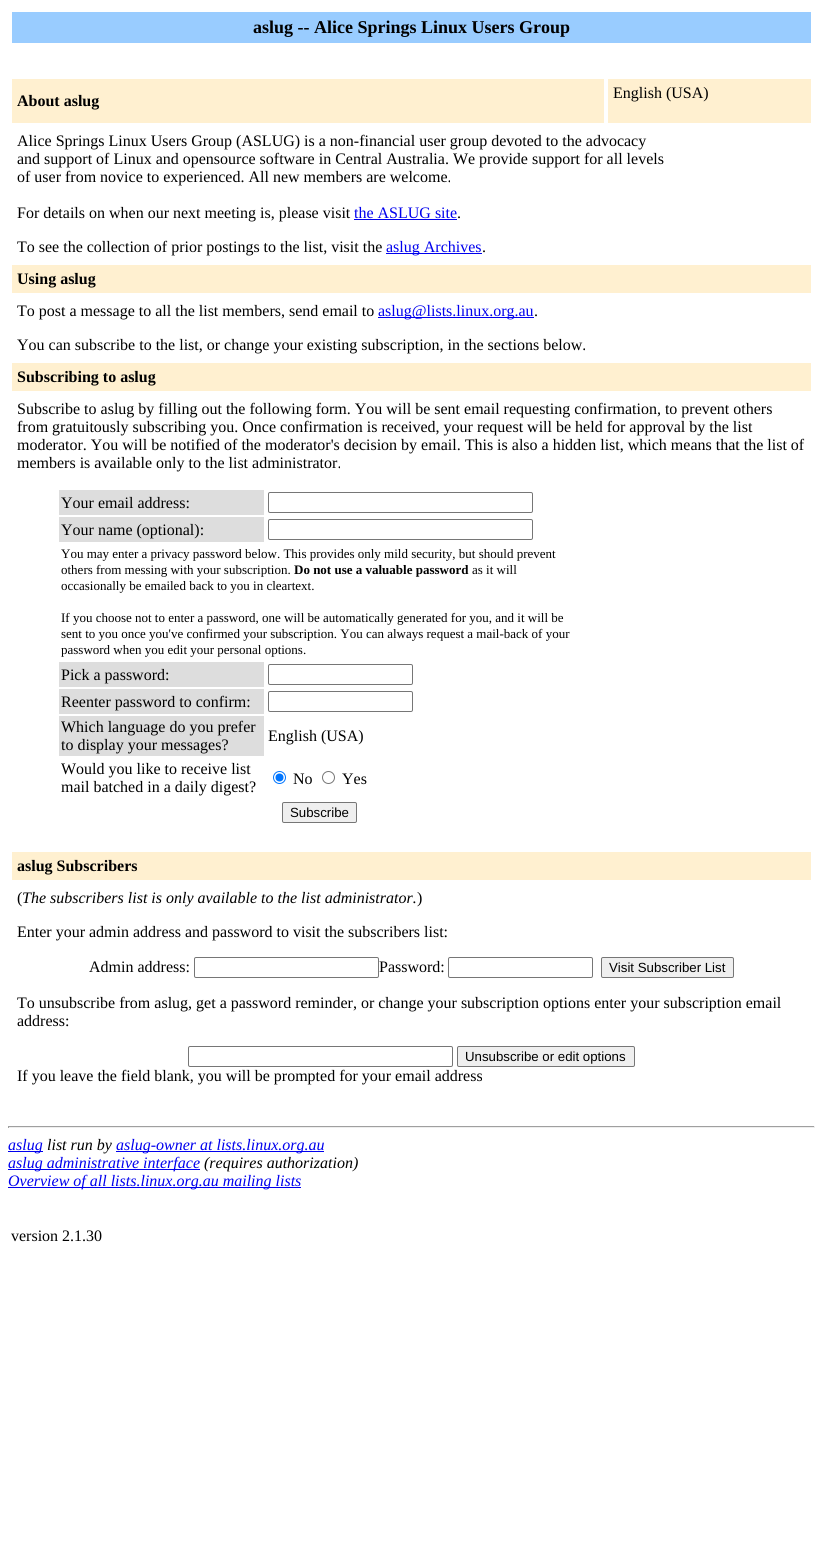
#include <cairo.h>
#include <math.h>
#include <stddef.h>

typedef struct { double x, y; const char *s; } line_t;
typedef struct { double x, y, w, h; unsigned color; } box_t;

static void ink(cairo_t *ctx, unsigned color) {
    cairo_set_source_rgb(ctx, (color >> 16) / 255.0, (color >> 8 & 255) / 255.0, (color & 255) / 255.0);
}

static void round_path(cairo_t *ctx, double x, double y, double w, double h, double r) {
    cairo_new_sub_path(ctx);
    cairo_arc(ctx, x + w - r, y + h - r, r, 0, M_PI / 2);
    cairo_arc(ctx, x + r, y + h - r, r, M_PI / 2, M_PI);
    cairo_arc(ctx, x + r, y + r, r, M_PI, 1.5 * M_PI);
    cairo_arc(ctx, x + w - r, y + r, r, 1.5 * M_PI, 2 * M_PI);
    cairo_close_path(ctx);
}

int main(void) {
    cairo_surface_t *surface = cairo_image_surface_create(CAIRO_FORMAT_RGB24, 823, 1559);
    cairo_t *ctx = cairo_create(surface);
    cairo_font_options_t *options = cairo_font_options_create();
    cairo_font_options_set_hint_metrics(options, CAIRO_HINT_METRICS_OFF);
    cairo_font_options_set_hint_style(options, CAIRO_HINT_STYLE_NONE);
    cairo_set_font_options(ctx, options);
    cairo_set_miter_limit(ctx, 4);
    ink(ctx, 0xFFFFFF);
    cairo_paint(ctx);
    ink(ctx, 0x99CCFF);
    cairo_rectangle(ctx, 12, 12, 799, 31);
    cairo_fill(ctx);
    cairo_select_font_face(ctx, "Liberation Serif", CAIRO_FONT_SLANT_NORMAL, CAIRO_FONT_WEIGHT_BOLD);
    cairo_set_font_size(ctx, 18);
    ink(ctx, 0x000000);
    cairo_move_to(ctx, 253, 33);
    cairo_show_text(ctx, "aslug -- Alice Springs Linux Users Group");
    ink(ctx, 0xFFF0D0);
    cairo_rectangle(ctx, 12, 79, 592, 44);
    cairo_fill(ctx);
    cairo_set_font_size(ctx, 16);
    ink(ctx, 0x000000);
    cairo_move_to(ctx, 17, 106);
    cairo_show_text(ctx, "About aslug");
    ink(ctx, 0xFFF0D0);
    cairo_rectangle(ctx, 608, 79, 203, 44);
    cairo_fill(ctx);
    cairo_select_font_face(ctx, "Liberation Serif", CAIRO_FONT_SLANT_NORMAL, CAIRO_FONT_WEIGHT_NORMAL);
    ink(ctx, 0x000000);
    {
        static const line_t items[] = {
            {613, 98, "English (USA)"},
            {17, 146, "Alice Springs Linux Users Group (ASLUG) is a non-financial user group devoted to the advocacy"},
            {17, 164, "and support of Linux and opensource software in Central Australia. We provide support for all levels"},
            {17, 182, "of user from novice to experienced. All new members are welcome."},
            {17, 218, "For details on when our next meeting is, please visit"},
        };
        for (size_t i = 0; i < sizeof items / sizeof *items; i++) {
            cairo_move_to(ctx, items[i].x, items[i].y);
            cairo_show_text(ctx, items[i].s);
        }
    }
    ink(ctx, 0x0000EE);
    cairo_move_to(ctx, 354, 218);
    cairo_show_text(ctx, "the ASLUG site");
    cairo_rectangle(ctx, 354, 219, 103, 1);
    cairo_fill(ctx);
    ink(ctx, 0x000000);
    cairo_move_to(ctx, 457, 218);
    cairo_show_text(ctx, ".");
    cairo_move_to(ctx, 17, 252);
    cairo_show_text(ctx, "To see the collection of prior postings to the list, visit the");
    ink(ctx, 0x0000EE);
    cairo_rectangle(ctx, 386, 253, 96, 1);
    cairo_fill(ctx);
    cairo_move_to(ctx, 386, 252);
    cairo_show_text(ctx, "aslug Archives");
    ink(ctx, 0x000000);
    cairo_move_to(ctx, 482, 252);
    cairo_show_text(ctx, ".");
    ink(ctx, 0xFFF0D0);
    cairo_rectangle(ctx, 12, 265, 799, 28);
    cairo_fill(ctx);
    cairo_select_font_face(ctx, "Liberation Serif", CAIRO_FONT_SLANT_NORMAL, CAIRO_FONT_WEIGHT_BOLD);
    ink(ctx, 0x000000);
    cairo_move_to(ctx, 17, 284);
    cairo_show_text(ctx, "Using aslug");
    cairo_select_font_face(ctx, "Liberation Serif", CAIRO_FONT_SLANT_NORMAL, CAIRO_FONT_WEIGHT_NORMAL);
    cairo_move_to(ctx, 17, 316);
    cairo_show_text(ctx, "To post a message to all the list members, send email to");
    ink(ctx, 0x0000EE);
    cairo_rectangle(ctx, 378, 317, 156, 1);
    cairo_fill(ctx);
    cairo_move_to(ctx, 378, 316);
    cairo_show_text(ctx, "aslug@lists.linux.org.au");
    ink(ctx, 0x000000);
    cairo_move_to(ctx, 534, 316);
    cairo_show_text(ctx, ".");
    cairo_move_to(ctx, 17, 350);
    cairo_show_text(ctx, "You can subscribe to the list, or change your existing subscription, in the sections below.");
    ink(ctx, 0xFFF0D0);
    cairo_rectangle(ctx, 12, 363, 799, 28);
    cairo_fill(ctx);
    cairo_select_font_face(ctx, "Liberation Serif", CAIRO_FONT_SLANT_NORMAL, CAIRO_FONT_WEIGHT_BOLD);
    ink(ctx, 0x000000);
    cairo_move_to(ctx, 17, 382);
    cairo_show_text(ctx, "Subscribing to aslug");
    cairo_select_font_face(ctx, "Liberation Serif", CAIRO_FONT_SLANT_NORMAL, CAIRO_FONT_WEIGHT_NORMAL);
    {
        static const line_t items[] = {
            {17, 414, "Subscribe to aslug by filling out the following form. You will be sent email requesting confirmation, to prevent others"},
            {17, 432, "from gratuitously subscribing you. Once confirmation is received, your request will be held for approval by the list"},
            {17, 450, "moderator. You will be notified of the moderator's decision by email. This is also a hidden list, which means that the list of"},
            {17, 468, "members is available only to the list administrator."},
        };
        for (size_t i = 0; i < sizeof items / sizeof *items; i++) {
            cairo_move_to(ctx, items[i].x, items[i].y);
            cairo_show_text(ctx, items[i].s);
        }
    }
    ink(ctx, 0xDDDDDD);
    cairo_rectangle(ctx, 59, 490, 205, 25);
    cairo_fill(ctx);
    ink(ctx, 0x000000);
    cairo_move_to(ctx, 61, 508);
    cairo_show_text(ctx, "Your email address:");
    round_path(ctx, 268.5, 492.5, 264, 20, 1.5);
    ink(ctx, 0x767676);
    cairo_set_line_width(ctx, 1);
    cairo_stroke(ctx);
    ink(ctx, 0xDDDDDD);
    cairo_rectangle(ctx, 59, 517, 205, 25);
    cairo_fill(ctx);
    ink(ctx, 0x000000);
    cairo_move_to(ctx, 61, 535);
    cairo_show_text(ctx, "Your name (optional):");
    round_path(ctx, 268.5, 519.5, 264, 20, 1.5);
    ink(ctx, 0x767676);
    cairo_stroke(ctx);
    cairo_set_font_size(ctx, 13);
    ink(ctx, 0x000000);
    cairo_move_to(ctx, 61, 558);
    cairo_show_text(ctx, "You may enter a privacy password below. This provides only mild security, but should prevent");
    cairo_move_to(ctx, 61, 574);
    cairo_show_text(ctx, "others from messing with your subscription.");
    cairo_select_font_face(ctx, "Liberation Serif", CAIRO_FONT_SLANT_NORMAL, CAIRO_FONT_WEIGHT_BOLD);
    cairo_move_to(ctx, 294, 574);
    cairo_show_text(ctx, "Do not use a valuable password");
    cairo_select_font_face(ctx, "Liberation Serif", CAIRO_FONT_SLANT_NORMAL, CAIRO_FONT_WEIGHT_NORMAL);
    {
        static const line_t items[] = {
            {472, 574, "as it will"},
            {61, 590, "occasionally be emailed back to you in cleartext."},
            {61, 622, "If you choose not to enter a password, one will be automatically generated for you, and it will be"},
            {61, 638, "sent to you once you've confirmed your subscription. You can always request a mail-back of your"},
            {61, 654, "password when you edit your personal options."},
        };
        for (size_t i = 0; i < sizeof items / sizeof *items; i++) {
            cairo_move_to(ctx, items[i].x, items[i].y);
            cairo_show_text(ctx, items[i].s);
        }
    }
    ink(ctx, 0xDDDDDD);
    cairo_rectangle(ctx, 59, 662, 205, 25);
    cairo_fill(ctx);
    cairo_set_font_size(ctx, 16);
    ink(ctx, 0x000000);
    cairo_move_to(ctx, 61, 680);
    cairo_show_text(ctx, "Pick a password:");
    round_path(ctx, 268.5, 664.5, 144, 20, 1.5);
    ink(ctx, 0x767676);
    cairo_stroke(ctx);
    ink(ctx, 0xDDDDDD);
    cairo_rectangle(ctx, 59, 689, 205, 25);
    cairo_fill(ctx);
    ink(ctx, 0x000000);
    cairo_move_to(ctx, 61, 707);
    cairo_show_text(ctx, "Reenter password to confirm:");
    round_path(ctx, 268.5, 691.5, 144, 20, 1.5);
    ink(ctx, 0x767676);
    cairo_stroke(ctx);
    ink(ctx, 0xDDDDDD);
    cairo_rectangle(ctx, 59, 716, 205, 40);
    cairo_fill(ctx);
    ink(ctx, 0x000000);
    {
        static const line_t items[] = {
            {61, 732, "Which language do you prefer"},
            {61, 750, "to display your messages?"},
            {268, 741, "English (USA)"},
            {61, 774, "Would you like to receive list"},
            {61, 792, "mail batched in a daily digest?"},
        };
        for (size_t i = 0; i < sizeof items / sizeof *items; i++) {
            cairo_move_to(ctx, items[i].x, items[i].y);
            cairo_show_text(ctx, items[i].s);
        }
    }
    cairo_new_path(ctx);
    cairo_arc(ctx, 279.5, 777.5, 6, 0, 2 * M_PI);
    ink(ctx, 0x0075FF);
    cairo_stroke(ctx);
    cairo_arc(ctx, 279.5, 777.5, 4, 0, 2 * M_PI);
    cairo_fill(ctx);
    ink(ctx, 0x000000);
    cairo_move_to(ctx, 293, 784);
    cairo_show_text(ctx, "No");
    cairo_new_path(ctx);
    cairo_arc(ctx, 328.5, 777.5, 6, 0, 2 * M_PI);
    ink(ctx, 0x767676);
    cairo_stroke(ctx);
    ink(ctx, 0x000000);
    cairo_move_to(ctx, 342, 784);
    cairo_show_text(ctx, "Yes");
    ink(ctx, 0xEFEFEF);
    round_path(ctx, 282.5, 802.5, 74, 20, 1.5);
    cairo_fill_preserve(ctx);
    ink(ctx, 0x767676);
    cairo_stroke(ctx);
    cairo_select_font_face(ctx, "Liberation Sans", CAIRO_FONT_SLANT_NORMAL, CAIRO_FONT_WEIGHT_NORMAL);
    cairo_set_font_size(ctx, 13.25);
    ink(ctx, 0x000000);
    cairo_move_to(ctx, 290, 817);
    cairo_show_text(ctx, "Subscribe");
    ink(ctx, 0xFFF0D0);
    cairo_rectangle(ctx, 12, 852, 799, 28);
    cairo_fill(ctx);
    cairo_select_font_face(ctx, "Liberation Serif", CAIRO_FONT_SLANT_NORMAL, CAIRO_FONT_WEIGHT_BOLD);
    cairo_set_font_size(ctx, 16);
    ink(ctx, 0x000000);
    cairo_move_to(ctx, 17, 871);
    cairo_show_text(ctx, "aslug Subscribers");
    cairo_select_font_face(ctx, "Liberation Serif", CAIRO_FONT_SLANT_NORMAL, CAIRO_FONT_WEIGHT_NORMAL);
    cairo_move_to(ctx, 17, 903);
    cairo_show_text(ctx, "(");
    cairo_select_font_face(ctx, "Liberation Serif", CAIRO_FONT_SLANT_ITALIC, CAIRO_FONT_WEIGHT_NORMAL);
    cairo_move_to(ctx, 22, 903);
    cairo_show_text(ctx, "The subscribers list is only available to the list administrator.");
    cairo_select_font_face(ctx, "Liberation Serif", CAIRO_FONT_SLANT_NORMAL, CAIRO_FONT_WEIGHT_NORMAL);
    {
        static const line_t items[] = {
            {417, 903, ")"},
            {17, 937, "Enter your admin address and password to visit the subscribers list:"},
            {89, 972, "Admin address:"},
        };
        for (size_t i = 0; i < sizeof items / sizeof *items; i++) {
            cairo_move_to(ctx, items[i].x, items[i].y);
            cairo_show_text(ctx, items[i].s);
        }
    }
    round_path(ctx, 194.5, 957.5, 184, 20, 1.5);
    ink(ctx, 0x767676);
    cairo_stroke(ctx);
    ink(ctx, 0x000000);
    cairo_move_to(ctx, 379, 972);
    cairo_show_text(ctx, "Password:");
    round_path(ctx, 448.5, 957.5, 144, 20, 1.5);
    ink(ctx, 0x767676);
    cairo_stroke(ctx);
    ink(ctx, 0xEFEFEF);
    round_path(ctx, 601.5, 957.5, 132, 20, 1.5);
    cairo_fill_preserve(ctx);
    ink(ctx, 0x767676);
    cairo_stroke(ctx);
    cairo_select_font_face(ctx, "Liberation Sans", CAIRO_FONT_SLANT_NORMAL, CAIRO_FONT_WEIGHT_NORMAL);
    cairo_set_font_size(ctx, 13.25);
    ink(ctx, 0x000000);
    cairo_move_to(ctx, 609, 972);
    cairo_show_text(ctx, "Visit Subscriber List");
    cairo_select_font_face(ctx, "Liberation Serif", CAIRO_FONT_SLANT_NORMAL, CAIRO_FONT_WEIGHT_NORMAL);
    cairo_set_font_size(ctx, 16);
    cairo_move_to(ctx, 17, 1008);
    cairo_show_text(ctx, "To unsubscribe from aslug, get a password reminder, or change your subscription options enter your subscription email");
    cairo_move_to(ctx, 17, 1026);
    cairo_show_text(ctx, "address:");
    round_path(ctx, 188.5, 1046.5, 264, 20, 1.5);
    ink(ctx, 0x767676);
    cairo_stroke(ctx);
    ink(ctx, 0xEFEFEF);
    round_path(ctx, 457.5, 1046.5, 177, 20, 1.5);
    cairo_fill_preserve(ctx);
    ink(ctx, 0x767676);
    cairo_stroke(ctx);
    cairo_select_font_face(ctx, "Liberation Sans", CAIRO_FONT_SLANT_NORMAL, CAIRO_FONT_WEIGHT_NORMAL);
    cairo_set_font_size(ctx, 13.25);
    ink(ctx, 0x000000);
    cairo_move_to(ctx, 465, 1061);
    cairo_show_text(ctx, "Unsubscribe or edit options");
    cairo_select_font_face(ctx, "Liberation Serif", CAIRO_FONT_SLANT_NORMAL, CAIRO_FONT_WEIGHT_NORMAL);
    cairo_set_font_size(ctx, 16);
    cairo_move_to(ctx, 17, 1081);
    cairo_show_text(ctx, "If you leave the field blank, you will be prompted for your email address");
    {
        static const box_t items[] = {
            {8, 1126, 807, 1, 0x9F9F9F},
            {814, 1126, 1, 2, 0xEEEEEE},
            {8, 1127, 807, 1, 0xEEEEEE},
            {8, 1126, 1, 2, 0x9F9F9F},
            {8, 1151, 35, 1, 0x0000EE},
        };
        for (size_t i = 0; i < sizeof items / sizeof *items; i++) {
            ink(ctx, items[i].color);
            cairo_rectangle(ctx, items[i].x, items[i].y, items[i].w, items[i].h);
            cairo_fill(ctx);
        }
    }
    cairo_select_font_face(ctx, "Liberation Serif", CAIRO_FONT_SLANT_ITALIC, CAIRO_FONT_WEIGHT_NORMAL);
    cairo_move_to(ctx, 8, 1150);
    cairo_show_text(ctx, "aslug");
    ink(ctx, 0x000000);
    cairo_move_to(ctx, 47, 1150);
    cairo_show_text(ctx, "list run by");
    ink(ctx, 0x0000EE);
    cairo_rectangle(ctx, 116, 1151, 208, 1);
    cairo_fill(ctx);
    cairo_move_to(ctx, 116, 1150);
    cairo_show_text(ctx, "aslug-owner at lists.linux.org.au");
    cairo_rectangle(ctx, 8, 1169, 192, 1);
    cairo_fill(ctx);
    cairo_move_to(ctx, 8, 1168);
    cairo_show_text(ctx, "aslug administrative interface");
    ink(ctx, 0x000000);
    cairo_move_to(ctx, 204, 1168);
    cairo_show_text(ctx, "(requires authorization)");
    ink(ctx, 0x0000EE);
    cairo_rectangle(ctx, 8, 1187, 293, 1);
    cairo_fill(ctx);
    cairo_move_to(ctx, 8, 1186);
    cairo_show_text(ctx, "Overview of all lists.linux.org.au mailing lists");
    cairo_select_font_face(ctx, "Liberation Serif", CAIRO_FONT_SLANT_NORMAL, CAIRO_FONT_WEIGHT_NORMAL);
    ink(ctx, 0x000000);
    cairo_move_to(ctx, 11, 1241);
    cairo_show_text(ctx, "version 2.1.30");
    cairo_surface_write_to_png(surface, "image.png");
    cairo_font_options_destroy(options);
    cairo_destroy(ctx);
    cairo_surface_destroy(surface);
    return 0;
}
